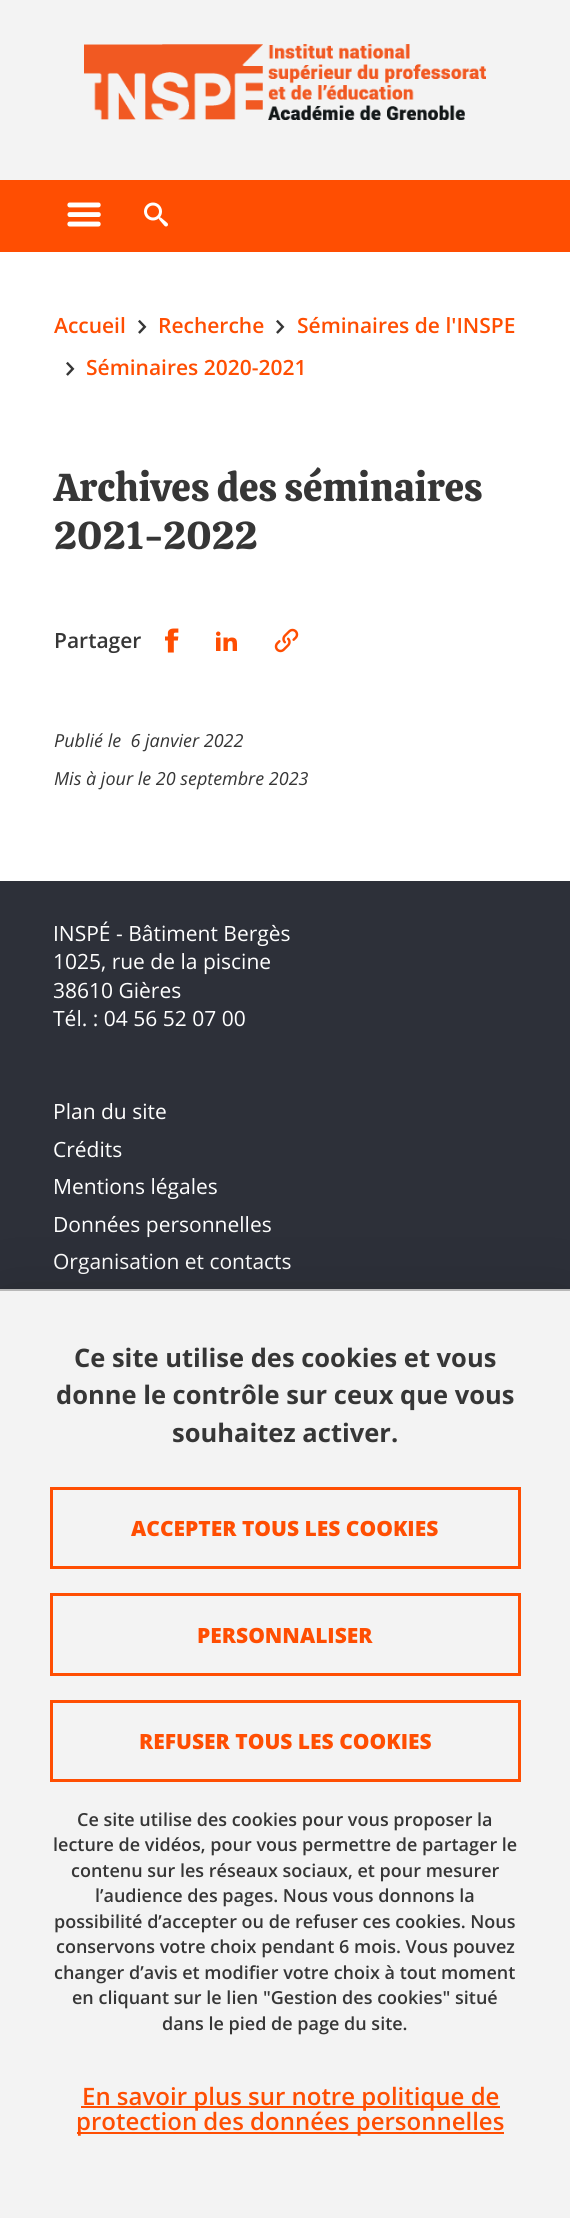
#include <cairo.h>
#include <math.h>
#include <stddef.h>

typedef struct { double x, y; const char *s; } line_t;

static void ink(cairo_t *ctx, unsigned color) {
    cairo_set_source_rgb(ctx, (color >> 16) / 255.0, (color >> 8 & 255) / 255.0, (color & 255) / 255.0);
}

static void round_path(cairo_t *ctx, double x, double y, double w, double h, double r) {
    cairo_new_sub_path(ctx);
    cairo_arc(ctx, x + w - r, y + h - r, r, 0, M_PI / 2);
    cairo_arc(ctx, x + r, y + h - r, r, M_PI / 2, M_PI);
    cairo_arc(ctx, x + r, y + r, r, M_PI, 1.5 * M_PI);
    cairo_arc(ctx, x + w - r, y + r, r, 1.5 * M_PI, 2 * M_PI);
    cairo_close_path(ctx);
}

static void blur_box(cairo_t *ctx, double x, double y, double w, double h, double r, double blur, double alpha) {
    cairo_push_group_with_content(ctx, CAIRO_CONTENT_ALPHA);
    cairo_set_operator(ctx, CAIRO_OPERATOR_SOURCE);
    for (int i = 15; i >= -15 && fmin(w, h) + blur * i / 3 > 0; i -= 2) {
        double e = blur * i / 6;
        cairo_set_source_rgba(ctx, 0, 0, 0, alpha * erfc((i - 1) / 8.5) / 2);
        round_path(ctx, x - e, y - e, w + 2 * e, h + 2 * e, fmax(0, fmin(r + e + blur * .6, fmin(w, h) / 2 + e)));
        cairo_fill(ctx);
    }
    cairo_pattern_t *soft = cairo_pop_group(ctx);
    cairo_mask(ctx, soft);
    cairo_pattern_destroy(soft);
}

static void paste(cairo_t *ctx, const char *path, double x, double y, double w, double h) {
    cairo_surface_t *image = cairo_image_surface_create_from_png(path);
    cairo_save(ctx);
    cairo_set_source_surface(ctx, image, x, y);
    cairo_rectangle(ctx, x, y, w, h);
    cairo_fill(ctx);
    cairo_restore(ctx);
    cairo_surface_destroy(image);
}

int main(void) {
    cairo_surface_t *surface = cairo_image_surface_create(CAIRO_FORMAT_RGB24, 570, 2218);
    cairo_t *ctx = cairo_create(surface);
    cairo_font_options_t *options = cairo_font_options_create();
    cairo_font_options_set_hint_metrics(options, CAIRO_HINT_METRICS_OFF);
    cairo_font_options_set_hint_style(options, CAIRO_HINT_STYLE_NONE);
    cairo_set_font_options(ctx, options);
    cairo_set_miter_limit(ctx, 4);
    ink(ctx, 0xFFFFFF);
    cairo_paint(ctx);
    ink(ctx, 0xF3F3F3);
    cairo_rectangle(ctx, 0, 0, 570, 180);
    cairo_fill(ctx);
    paste(ctx, "media/1.png", 84, 44, 402, 76);
    ink(ctx, 0xFF4E02);
    cairo_rectangle(ctx, 0, 180, 570, 72);
    cairo_fill(ctx);
    paste(ctx, "media/2.png", 67, 202, 34, 25);
    paste(ctx, "media/3.png", 144, 202, 24, 25);
    cairo_select_font_face(ctx, "Open Sans SemiBold", CAIRO_FONT_SLANT_NORMAL, CAIRO_FONT_WEIGHT_NORMAL);
    cairo_set_font_size(ctx, 21);
    cairo_move_to(ctx, 54, 333);
    cairo_show_text(ctx, "Accueil");
    paste(ctx, "media/4.png", 138, 319, 9, 15);
    cairo_move_to(ctx, 158, 333);
    cairo_show_text(ctx, "Recherche");
    paste(ctx, "media/4.png", 276, 319, 9, 15);
    cairo_move_to(ctx, 297, 333);
    cairo_show_text(ctx, "Séminaires de l'INSPE");
    paste(ctx, "media/4.png", 66, 361, 9, 15);
    cairo_move_to(ctx, 86, 375);
    cairo_show_text(ctx, "Séminaires 2020-2021");
    cairo_select_font_face(ctx, "Calistoga", CAIRO_FONT_SLANT_NORMAL, CAIRO_FONT_WEIGHT_NORMAL);
    cairo_set_font_size(ctx, 39);
    ink(ctx, 0x363636);
    cairo_move_to(ctx, 54, 501);
    cairo_show_text(ctx, "Archives des séminaires");
    cairo_move_to(ctx, 54, 549);
    cairo_show_text(ctx, "2021-2022");
    cairo_select_font_face(ctx, "Open Sans SemiBold", CAIRO_FONT_SLANT_NORMAL, CAIRO_FONT_WEIGHT_NORMAL);
    cairo_set_font_size(ctx, 21);
    cairo_move_to(ctx, 54, 648);
    cairo_show_text(ctx, "Partager");
    paste(ctx, "media/5.png", 165, 628, 14, 25);
    paste(ctx, "media/6.png", 216, 631, 21, 20);
    paste(ctx, "media/7.png", 274, 628, 25, 25);
    cairo_select_font_face(ctx, "Open Sans", CAIRO_FONT_SLANT_ITALIC, CAIRO_FONT_WEIGHT_NORMAL);
    cairo_set_font_size(ctx, 18);
    cairo_move_to(ctx, 54, 747);
    cairo_show_text(ctx, "Publié le  6 janvier 2022");
    cairo_move_to(ctx, 54, 785);
    cairo_show_text(ctx, "Mis à jour le 20 septembre 2023");
    ink(ctx, 0x2D3039);
    cairo_rectangle(ctx, 0, 881, 570, 408);
    cairo_fill(ctx);
    cairo_select_font_face(ctx, "Open Sans", CAIRO_FONT_SLANT_NORMAL, CAIRO_FONT_WEIGHT_NORMAL);
    cairo_set_font_size(ctx, 21);
    ink(ctx, 0xFFFFFF);
    {
        static const line_t items[] = {
            {53, 941, "INSPÉ - Bâtiment Bergès"},
            {53, 969, "1025, rue de la piscine"},
            {53, 998, "38610 Gières"},
            {53, 1026, "Tél. : 04 56 52 07 00"},
            {53, 1119, "Plan du site"},
            {53, 1157, "Crédits"},
            {53, 1194, "Mentions légales"},
            {53, 1232, "Données personnelles"},
            {53, 1269, "Organisation et contacts"},
        };
        for (size_t i = 0; i < sizeof items / sizeof *items; i++) {
            cairo_move_to(ctx, items[i].x, items[i].y);
            cairo_show_text(ctx, items[i].s);
        }
    }
    ink(ctx, 0x000000);
    blur_box(ctx, 0, 1319, 570, 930, 0, 45, 0.25);
    ink(ctx, 0xF3F3F3);
    cairo_rectangle(ctx, 0, 1291, 570, 927);
    cairo_fill(ctx);
    ink(ctx, 0xB8B8B8);
    cairo_rectangle(ctx, 0, 1289, 570, 2);
    cairo_fill(ctx);
    cairo_select_font_face(ctx, "Open Sans", CAIRO_FONT_SLANT_NORMAL, CAIRO_FONT_WEIGHT_BOLD);
    cairo_set_font_size(ctx, 25.5);
    ink(ctx, 0x363636);
    {
        static const line_t items[] = {
            {74, 1367, "Ce site utilise des cookies et vous"},
            {56, 1404, "donne le contrôle sur ceux que vous"},
            {172, 1442, "souhaitez activer."},
        };
        for (size_t i = 0; i < sizeof items / sizeof *items; i++) {
            cairo_move_to(ctx, items[i].x, items[i].y);
            cairo_show_text(ctx, items[i].s);
        }
    }
    cairo_rectangle(ctx, 51.5, 1488.5, 468, 79);
    ink(ctx, 0xFF4E02);
    cairo_set_line_width(ctx, 3);
    cairo_stroke(ctx);
    cairo_select_font_face(ctx, "Open Sans ExtraBold", CAIRO_FONT_SLANT_NORMAL, CAIRO_FONT_WEIGHT_NORMAL);
    cairo_set_font_size(ctx, 21);
    cairo_move_to(ctx, 131, 1536);
    cairo_show_text(ctx, "ACCEPTER TOUS LES COOKIES");
    cairo_rectangle(ctx, 51.5, 1594.5, 468, 80);
    cairo_stroke(ctx);
    cairo_move_to(ctx, 197, 1643);
    cairo_show_text(ctx, "PERSONNALISER");
    cairo_rectangle(ctx, 51.5, 1701.5, 468, 79);
    cairo_stroke(ctx);
    cairo_move_to(ctx, 139, 1749);
    cairo_show_text(ctx, "REFUSER TOUS LES COOKIES");
    cairo_select_font_face(ctx, "Open Sans SemiBold", CAIRO_FONT_SLANT_NORMAL, CAIRO_FONT_WEIGHT_NORMAL);
    cairo_set_font_size(ctx, 18);
    ink(ctx, 0x363636);
    {
        static const line_t items[] = {
            {77, 1826, "Ce site utilise des cookies pour vous proposer la"},
            {53, 1851, "lecture de vidéos, pour vous permettre de partager le"},
            {71, 1877, "contenu sur les réseaux sociaux, et pour mesurer"},
            {95, 1902, "l’audience des pages. Nous vous donnons la"},
            {54, 1928, "possibilité d’accepter ou de refuser ces cookies. Nous"},
            {56, 1953, "conservons votre choix pendant 6 mois. Vous pouvez"},
            {54, 1979, "changer d’avis et modifier votre choix à tout moment"},
            {72, 2004, "en cliquant sur le lien \"Gestion des cookies\" situé"},
            {162, 2030, "dans le pied de page du site."},
        };
        for (size_t i = 0; i < sizeof items / sizeof *items; i++) {
            cairo_move_to(ctx, items[i].x, items[i].y);
            cairo_show_text(ctx, items[i].s);
        }
    }
    ink(ctx, 0xFF4E02);
    cairo_rectangle(ctx, 81, 2106, 419, 2);
    cairo_fill(ctx);
    cairo_set_font_size(ctx, 24);
    cairo_move_to(ctx, 82, 2105);
    cairo_show_text(ctx, "En savoir plus sur notre politique de");
    cairo_rectangle(ctx, 77, 2132, 427, 2);
    cairo_fill(ctx);
    cairo_move_to(ctx, 76, 2130);
    cairo_show_text(ctx, "protection des données personnelles");
    cairo_surface_write_to_png(surface, "image.png");
    cairo_font_options_destroy(options);
    cairo_destroy(ctx);
    cairo_surface_destroy(surface);
    return 0;
}
